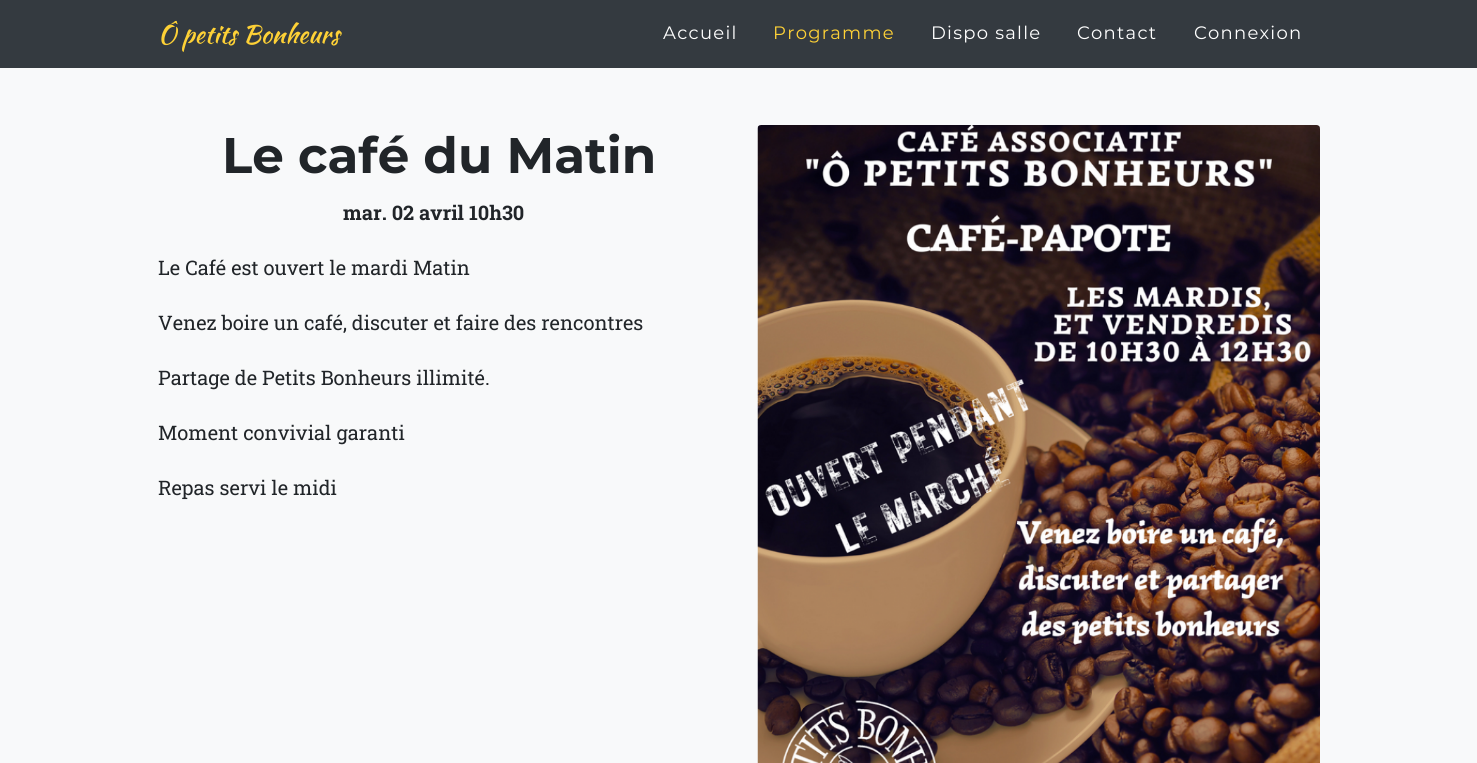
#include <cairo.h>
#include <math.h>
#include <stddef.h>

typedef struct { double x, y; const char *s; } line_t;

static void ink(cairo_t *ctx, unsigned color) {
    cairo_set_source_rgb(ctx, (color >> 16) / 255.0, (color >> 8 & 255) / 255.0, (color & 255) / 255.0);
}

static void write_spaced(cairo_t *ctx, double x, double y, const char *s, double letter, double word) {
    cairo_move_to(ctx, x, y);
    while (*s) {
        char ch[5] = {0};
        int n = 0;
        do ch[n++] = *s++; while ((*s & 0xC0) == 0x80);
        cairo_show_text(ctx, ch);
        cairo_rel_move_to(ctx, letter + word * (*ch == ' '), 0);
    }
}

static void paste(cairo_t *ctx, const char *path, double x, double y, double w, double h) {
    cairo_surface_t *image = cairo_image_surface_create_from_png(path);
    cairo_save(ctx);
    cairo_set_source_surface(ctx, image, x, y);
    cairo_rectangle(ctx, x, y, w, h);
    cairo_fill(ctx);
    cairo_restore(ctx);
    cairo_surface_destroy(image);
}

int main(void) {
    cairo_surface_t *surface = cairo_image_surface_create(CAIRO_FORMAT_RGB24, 1477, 763);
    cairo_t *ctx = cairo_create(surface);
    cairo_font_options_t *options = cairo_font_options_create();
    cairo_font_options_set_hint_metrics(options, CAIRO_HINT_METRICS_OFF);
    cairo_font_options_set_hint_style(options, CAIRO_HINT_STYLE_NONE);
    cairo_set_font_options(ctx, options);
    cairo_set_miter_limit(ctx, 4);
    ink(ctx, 0xF8F9FA);
    cairo_paint(ctx);
    ink(ctx, 0x343A40);
    cairo_rectangle(ctx, 0, 0, 1477, 68);
    cairo_fill(ctx);
    cairo_select_font_face(ctx, "Kaushan Script", CAIRO_FONT_SLANT_NORMAL, CAIRO_FONT_WEIGHT_NORMAL);
    cairo_set_font_size(ctx, 25);
    ink(ctx, 0xFED136);
    cairo_move_to(ctx, 158, 43);
    cairo_show_text(ctx, "Ô petits Bonheurs");
    cairo_select_font_face(ctx, "Montserrat", CAIRO_FONT_SLANT_NORMAL, CAIRO_FONT_WEIGHT_NORMAL);
    cairo_set_font_size(ctx, 18);
    ink(ctx, 0xFFFFFF);
    write_spaced(ctx, 663, 39, "Accueil", 1.25, 0);
    ink(ctx, 0xFED136);
    write_spaced(ctx, 773, 39, "Programme", 1.25, 0);
    ink(ctx, 0xFFFFFF);
    {
        static const line_t items[] = {
            {931, 39, "Dispo salle"},
            {1077, 39, "Contact"},
            {1194, 39, "Connexion"},
        };
        for (size_t i = 0; i < sizeof items / sizeof *items; i++) {
            write_spaced(ctx, items[i].x, items[i].y, items[i].s, 1.25, 0);
        }
    }
    cairo_select_font_face(ctx, "Montserrat", CAIRO_FONT_SLANT_NORMAL, CAIRO_FONT_WEIGHT_BOLD);
    cairo_set_font_size(ctx, 50);
    ink(ctx, 0x212529);
    cairo_move_to(ctx, 222, 173);
    cairo_show_text(ctx, "Le café du Matin");
    cairo_select_font_face(ctx, "Roboto Slab", CAIRO_FONT_SLANT_NORMAL, CAIRO_FONT_WEIGHT_BOLD);
    cairo_set_font_size(ctx, 20);
    cairo_move_to(ctx, 343, 220);
    cairo_show_text(ctx, "mar. 02 avril 10h30");
    cairo_select_font_face(ctx, "Roboto Slab", CAIRO_FONT_SLANT_NORMAL, CAIRO_FONT_WEIGHT_NORMAL);
    {
        static const line_t items[] = {
            {158, 275, "Le Café est ouvert le mardi Matin"},
            {158, 330, "Venez boire un café, discuter et faire des rencontres"},
            {158, 385, "Partage de Petits Bonheurs illimité."},
            {158, 440, "Moment convivial garanti"},
            {158, 495, "Repas servi le midi"},
        };
        for (size_t i = 0; i < sizeof items / sizeof *items; i++) {
            cairo_move_to(ctx, items[i].x, items[i].y);
            cairo_show_text(ctx, items[i].s);
        }
    }
    paste(ctx, "media/1.png", 757, 125, 563, 638);
    cairo_surface_write_to_png(surface, "image.png");
    cairo_font_options_destroy(options);
    cairo_destroy(ctx);
    cairo_surface_destroy(surface);
    return 0;
}
